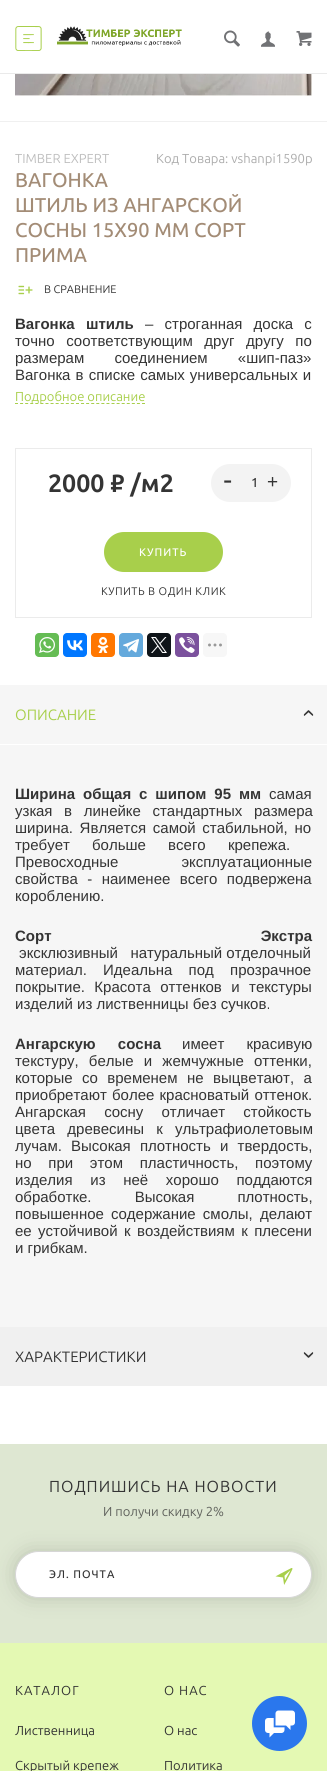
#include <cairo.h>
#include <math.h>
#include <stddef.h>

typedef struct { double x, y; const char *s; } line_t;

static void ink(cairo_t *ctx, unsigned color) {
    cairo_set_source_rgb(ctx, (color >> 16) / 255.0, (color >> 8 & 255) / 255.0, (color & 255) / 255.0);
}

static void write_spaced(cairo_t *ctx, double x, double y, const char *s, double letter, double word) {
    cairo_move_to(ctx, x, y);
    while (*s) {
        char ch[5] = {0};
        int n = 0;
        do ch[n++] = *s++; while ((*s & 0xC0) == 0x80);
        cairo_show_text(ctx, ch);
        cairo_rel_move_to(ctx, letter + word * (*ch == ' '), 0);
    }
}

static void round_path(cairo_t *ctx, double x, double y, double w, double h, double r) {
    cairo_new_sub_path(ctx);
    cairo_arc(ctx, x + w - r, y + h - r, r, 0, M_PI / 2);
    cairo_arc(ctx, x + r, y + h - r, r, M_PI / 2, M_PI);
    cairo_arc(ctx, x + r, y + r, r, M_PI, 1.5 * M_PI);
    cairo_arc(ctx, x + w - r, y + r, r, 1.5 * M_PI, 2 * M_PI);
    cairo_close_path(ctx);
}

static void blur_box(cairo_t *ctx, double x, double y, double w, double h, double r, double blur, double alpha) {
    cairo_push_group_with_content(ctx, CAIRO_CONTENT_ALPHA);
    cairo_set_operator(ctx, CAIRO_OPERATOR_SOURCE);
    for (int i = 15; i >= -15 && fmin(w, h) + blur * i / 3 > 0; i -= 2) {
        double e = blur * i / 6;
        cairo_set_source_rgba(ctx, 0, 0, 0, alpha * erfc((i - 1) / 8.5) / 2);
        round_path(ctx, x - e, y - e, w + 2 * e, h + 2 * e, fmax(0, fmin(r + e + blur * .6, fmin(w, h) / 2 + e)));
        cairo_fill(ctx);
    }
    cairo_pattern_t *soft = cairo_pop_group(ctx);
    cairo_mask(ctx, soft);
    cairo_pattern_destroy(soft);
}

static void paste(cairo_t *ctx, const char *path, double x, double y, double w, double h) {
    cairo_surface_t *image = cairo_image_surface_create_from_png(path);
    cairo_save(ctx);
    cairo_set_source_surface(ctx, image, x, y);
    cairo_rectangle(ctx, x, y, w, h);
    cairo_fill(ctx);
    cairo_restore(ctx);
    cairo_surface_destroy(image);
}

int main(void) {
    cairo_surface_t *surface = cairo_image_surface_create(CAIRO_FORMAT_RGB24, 327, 1771);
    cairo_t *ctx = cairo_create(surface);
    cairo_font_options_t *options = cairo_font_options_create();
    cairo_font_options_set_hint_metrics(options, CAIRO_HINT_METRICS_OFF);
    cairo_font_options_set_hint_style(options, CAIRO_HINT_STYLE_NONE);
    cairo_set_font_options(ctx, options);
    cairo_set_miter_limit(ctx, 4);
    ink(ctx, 0xFFFFFF);
    cairo_paint(ctx);
    cairo_rectangle(ctx, -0.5, -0.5, 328, 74);
    ink(ctx, 0xEAEAEA);
    cairo_set_line_width(ctx, 1);
    cairo_stroke(ctx);
    paste(ctx, "media/1.png", 15, 26, 27, 25);
    paste(ctx, "media/2.png", 57, 26, 125, 20);
    paste(ctx, "media/3.png", 224, 30, 16, 17);
    paste(ctx, "media/4.png", 261, 31, 14, 16);
    paste(ctx, "media/5.png", 296, 31, 16, 15);
    ink(ctx, 0xF0F0F0);
    cairo_rectangle(ctx, 0, 121, 327, 1);
    cairo_fill(ctx);
    paste(ctx, "media/6.png", 15, 74, 297, 22);
    cairo_select_font_face(ctx, "Ubuntu", CAIRO_FONT_SLANT_NORMAL, CAIRO_FONT_WEIGHT_NORMAL);
    cairo_set_font_size(ctx, 13);
    ink(ctx, 0xBEBEBE);
    cairo_move_to(ctx, 15, 163);
    cairo_show_text(ctx, "TIMBER EXPERT");
    ink(ctx, 0xACACAC);
    cairo_move_to(ctx, 156, 163);
    cairo_show_text(ctx, "Код Товара: vshanpi1590p");
    cairo_select_font_face(ctx, "Ubuntu Medium", CAIRO_FONT_SLANT_NORMAL, CAIRO_FONT_WEIGHT_NORMAL);
    cairo_set_font_size(ctx, 20);
    ink(ctx, 0xA38C76);
    {
        static const line_t items[] = {
            {15, 187, "ВАГОНКА"},
            {15, 212, "ШТИЛЬ ИЗ АНГАРСКОЙ"},
            {15, 237, "СОСНЫ 15Х90 ММ СОРТ"},
            {15, 262, "ПРИМА"},
        };
        for (size_t i = 0; i < sizeof items / sizeof *items; i++) {
            cairo_move_to(ctx, items[i].x, items[i].y);
            cairo_show_text(ctx, items[i].s);
        }
    }
    paste(ctx, "media/7.png", 18, 285, 15, 10);
    cairo_select_font_face(ctx, "Ubuntu", CAIRO_FONT_SLANT_NORMAL, CAIRO_FONT_WEIGHT_NORMAL);
    cairo_set_font_size(ctx, 11);
    ink(ctx, 0x343434);
    cairo_move_to(ctx, 44, 293);
    cairo_show_text(ctx, "В СРАВНЕНИЕ");
    cairo_select_font_face(ctx, "Liberation Sans", CAIRO_FONT_SLANT_NORMAL, CAIRO_FONT_WEIGHT_BOLD);
    cairo_set_font_size(ctx, 15);
    cairo_move_to(ctx, 15, 329);
    cairo_show_text(ctx, "Вагонка");
    cairo_move_to(ctx, 86, 329);
    cairo_show_text(ctx, "штиль");
    cairo_select_font_face(ctx, "Liberation Sans", CAIRO_FONT_SLANT_NORMAL, CAIRO_FONT_WEIGHT_NORMAL);
    write_spaced(ctx, 145, 329, "– строганная доска с", 0, 7);
    write_spaced(ctx, 15, 346, "точно соответствующим друг другу по", 0, 7.5);
    write_spaced(ctx, 15, 363, "размерам соединением «шип-паз»", 0, 26);
    write_spaced(ctx, 15, 380, "Вагонка в списке самых универсальных и", 0, 1);
    cairo_new_path(ctx);
    cairo_move_to(ctx, 15, 403.5);
    cairo_line_to(ctx, 145, 403.5);
    ink(ctx, 0xA8CF4B);
    cairo_set_dash(ctx, (double[]){3, 2.08}, 2, 0);
    cairo_stroke(ctx);
    cairo_select_font_face(ctx, "Ubuntu", CAIRO_FONT_SLANT_NORMAL, CAIRO_FONT_WEIGHT_NORMAL);
    cairo_set_font_size(ctx, 13);
    cairo_move_to(ctx, 15, 401);
    cairo_show_text(ctx, "Подробное описание");
    cairo_rectangle(ctx, 15.5, 448.5, 296, 169);
    ink(ctx, 0xEBEBEB);
    cairo_set_dash(ctx, NULL, 0, 0);
    cairo_stroke(ctx);
    cairo_select_font_face(ctx, "Ubuntu", CAIRO_FONT_SLANT_NORMAL, CAIRO_FONT_WEIGHT_BOLD);
    cairo_set_font_size(ctx, 25);
    ink(ctx, 0x343434);
    cairo_move_to(ctx, 48, 492);
    cairo_show_text(ctx, "2000 ₽ /м2");
    ink(ctx, 0xF3F3F3);
    round_path(ctx, 211, 464, 80, 38, 19);
    cairo_fill(ctx);
    cairo_select_font_face(ctx, "Liberation Sans", CAIRO_FONT_SLANT_NORMAL, CAIRO_FONT_WEIGHT_NORMAL);
    cairo_set_font_size(ctx, 28);
    ink(ctx, 0x343434);
    cairo_move_to(ctx, 223, 489);
    cairo_show_text(ctx, "-");
    cairo_select_font_face(ctx, "Ubuntu Medium", CAIRO_FONT_SLANT_NORMAL, CAIRO_FONT_WEIGHT_NORMAL);
    cairo_set_font_size(ctx, 13);
    write_spaced(ctx, 251, 487, "1", 1, 0);
    cairo_select_font_face(ctx, "Liberation Sans", CAIRO_FONT_SLANT_NORMAL, CAIRO_FONT_WEIGHT_NORMAL);
    cairo_set_font_size(ctx, 19);
    cairo_move_to(ctx, 267, 488);
    cairo_show_text(ctx, "+");
    ink(ctx, 0xA8CF4B);
    round_path(ctx, 104, 532, 119, 40, 20);
    cairo_fill(ctx);
    cairo_select_font_face(ctx, "Ubuntu Medium", CAIRO_FONT_SLANT_NORMAL, CAIRO_FONT_WEIGHT_NORMAL);
    cairo_set_font_size(ctx, 11);
    ink(ctx, 0xFFFFFF);
    write_spaced(ctx, 139, 556, "КУПИТЬ", 1, 0);
    cairo_select_font_face(ctx, "Ubuntu", CAIRO_FONT_SLANT_NORMAL, CAIRO_FONT_WEIGHT_NORMAL);
    ink(ctx, 0x343434);
    write_spaced(ctx, 101, 595, "КУПИТЬ В ОДИН КЛИК", 0.5, 0);
    ink(ctx, 0x65BC54);
    round_path(ctx, 35, 633, 24, 24, 4);
    cairo_fill(ctx);
    paste(ctx, "media/8.png", 39, 637, 16, 16);
    ink(ctx, 0x0077FF);
    round_path(ctx, 63, 633, 24, 24, 4);
    cairo_fill(ctx);
    paste(ctx, "media/9.png", 67, 640, 16, 11);
    ink(ctx, 0xFF7700);
    round_path(ctx, 91, 633, 24, 24, 4);
    cairo_fill(ctx);
    paste(ctx, "media/10.png", 97, 637, 12, 16);
    ink(ctx, 0x64A9DC);
    round_path(ctx, 119, 633, 24, 24, 4);
    cairo_fill(ctx);
    paste(ctx, "media/11.png", 123, 639, 16, 14);
    ink(ctx, 0x0F1419);
    round_path(ctx, 147, 633, 24, 24, 4);
    cairo_fill(ctx);
    paste(ctx, "media/12.png", 151, 637, 16, 16);
    ink(ctx, 0x7B519D);
    round_path(ctx, 175, 633, 24, 24, 4);
    cairo_fill(ctx);
    paste(ctx, "media/13.png", 179, 637, 16, 16);
    ink(ctx, 0xF7F7F7);
    round_path(ctx, 203, 633, 24, 24, 4);
    cairo_fill(ctx);
    paste(ctx, "media/14.png", 208, 643, 14, 4);
    ink(ctx, 0xF6F6F6);
    cairo_rectangle(ctx, 0, 685, 327, 642);
    cairo_fill(ctx);
    ink(ctx, 0xFFFFFF);
    cairo_rectangle(ctx, 0, 744, 327, 1);
    cairo_fill(ctx);
    cairo_set_font_size(ctx, 15);
    ink(ctx, 0xA8CF4B);
    cairo_move_to(ctx, 15, 720);
    cairo_show_text(ctx, "ОПИСАНИЕ");
    paste(ctx, "media/15.png", 303, 710, 11, 6);
    cairo_select_font_face(ctx, "Liberation Sans", CAIRO_FONT_SLANT_NORMAL, CAIRO_FONT_WEIGHT_BOLD);
    ink(ctx, 0x343434);
    write_spaced(ctx, 15, 799, "Ширина общая с шипом 95 мм", 0, 3.75);
    cairo_select_font_face(ctx, "Liberation Sans", CAIRO_FONT_SLANT_NORMAL, CAIRO_FONT_WEIGHT_NORMAL);
    cairo_move_to(ctx, 269, 799);
    cairo_show_text(ctx, "самая");
    write_spaced(ctx, 15, 816, "узкая в линейке стандартных размера", 0, 7.5);
    write_spaced(ctx, 15, 833, "ширина. Является самой стабильной, но", 0, 2.5);
    write_spaced(ctx, 15, 850, "требует больше всего крепежа.", 0, 18);
    write_spaced(ctx, 15, 867, "Превосходные эксплуатационные", 0, 59);
    write_spaced(ctx, 15, 884, "свойства - наименее всего подвержена", 0, 5.25);
    cairo_move_to(ctx, 15, 901);
    cairo_show_text(ctx, "короблению.");
    cairo_select_font_face(ctx, "Liberation Sans", CAIRO_FONT_SLANT_NORMAL, CAIRO_FONT_WEIGHT_BOLD);
    write_spaced(ctx, 15, 941, "Сорт Экстра", 0, 205);
    cairo_select_font_face(ctx, "Liberation Sans", CAIRO_FONT_SLANT_NORMAL, CAIRO_FONT_WEIGHT_NORMAL);
    cairo_move_to(ctx, 19, 958);
    cairo_show_text(ctx, "эксклюзивный   натуральный отделочный");
    write_spaced(ctx, 15, 975, "материал. Идеальна под прозрачное", 0, 12);
    write_spaced(ctx, 15, 992, "покрытие. Красота оттенков и текстуры", 0, 5.25);
    cairo_move_to(ctx, 15, 1009);
    cairo_show_text(ctx, "изделий из лиственницы без сучков.");
    cairo_select_font_face(ctx, "Liberation Sans", CAIRO_FONT_SLANT_NORMAL, CAIRO_FONT_WEIGHT_BOLD);
    write_spaced(ctx, 15, 1049, "Ангарскую сосна", 0, 18);
    cairo_select_font_face(ctx, "Liberation Sans", CAIRO_FONT_SLANT_NORMAL, CAIRO_FONT_WEIGHT_NORMAL);
    write_spaced(ctx, 182, 1049, "имеет красивую", 0, 18);
    write_spaced(ctx, 15, 1066, "текстуру, белые и жемчужные оттенки,", 0, 6);
    write_spaced(ctx, 15, 1083, "которые со временем не выцветают, а", 0, 5.25);
    write_spaced(ctx, 15, 1100, "приобретают более красноватый оттенок.", 0, 1);
    write_spaced(ctx, 15, 1117, "Ангарская сосну отличает стойкость", 0, 14);
    write_spaced(ctx, 15, 1134, "цвета древесины к ультрафиолетовым", 0, 8);
    write_spaced(ctx, 15, 1151, "лучам. Высокая плотность и твердость,", 0, 5);
    write_spaced(ctx, 15, 1168, "но при этом пластичность, поэтому", 0, 12.5);
    write_spaced(ctx, 15, 1185, "изделия из неё хорошо поддаются", 0, 13.5);
    write_spaced(ctx, 15, 1202, "обработке. Высокая плотность,", 0, 39);
    write_spaced(ctx, 15, 1219, "повышенное содержание смолы, делают", 0, 3);
    write_spaced(ctx, 15, 1236, "ее устойчивой к воздействиям к плесени", 0, 2.25);
    cairo_move_to(ctx, 15, 1253);
    cairo_show_text(ctx, "и грибкам.");
    ink(ctx, 0xF0F0F0);
    cairo_rectangle(ctx, 0, 1327, 327, 59);
    cairo_fill(ctx);
    cairo_select_font_face(ctx, "Ubuntu", CAIRO_FONT_SLANT_NORMAL, CAIRO_FONT_WEIGHT_NORMAL);
    ink(ctx, 0x343434);
    cairo_move_to(ctx, 15, 1362);
    cairo_show_text(ctx, "ХАРАКТЕРИСТИКИ");
    paste(ctx, "media/16.png", 303, 1352, 11, 6);
    ink(ctx, 0xDEE7D2);
    cairo_rectangle(ctx, 0, 1444, 327, 199);
    cairo_fill(ctx);
    cairo_set_font_size(ctx, 16);
    ink(ctx, 0x343434);
    write_spaced(ctx, 49, 1492, "ПОДПИШИСЬ НА НОВОСТИ", 1, 0);
    cairo_set_font_size(ctx, 13);
    ink(ctx, 0x5F615C);
    cairo_move_to(ctx, 103, 1516);
    cairo_show_text(ctx, "И получи скидку 2%");
    ink(ctx, 0x000000);
    blur_box(ctx, 18, 1554, 291, 41, 20.5, 11, 0.2);
    ink(ctx, 0xFFFFFF);
    round_path(ctx, 15.5, 1551.5, 296, 46, 23);
    cairo_fill_preserve(ctx);
    ink(ctx, 0xD6D6D6);
    cairo_stroke(ctx);
    cairo_select_font_face(ctx, "Ubuntu Medium", CAIRO_FONT_SLANT_NORMAL, CAIRO_FONT_WEIGHT_NORMAL);
    cairo_set_font_size(ctx, 11);
    ink(ctx, 0x343434);
    write_spaced(ctx, 49, 1578, "ЭЛ. ПОЧТА", 1, 0);
    paste(ctx, "media/17.png", 275, 1568, 18, 17);
    ink(ctx, 0xE4F9B3);
    cairo_rectangle(ctx, 0, 1643, 327, 128);
    cairo_fill(ctx);
    cairo_select_font_face(ctx, "Ubuntu", CAIRO_FONT_SLANT_NORMAL, CAIRO_FONT_WEIGHT_NORMAL);
    cairo_set_font_size(ctx, 13);
    ink(ctx, 0x343434);
    write_spaced(ctx, 15, 1695, "КАТАЛОГ", 1, 0);
    cairo_move_to(ctx, 15, 1735);
    cairo_show_text(ctx, "Лиственница");
    cairo_move_to(ctx, 15, 1770);
    cairo_show_text(ctx, "Скрытый крепеж");
    write_spaced(ctx, 164, 1695, "О НАС", 1, 0);
    cairo_move_to(ctx, 164, 1735);
    cairo_show_text(ctx, "О нас");
    cairo_move_to(ctx, 164, 1770);
    cairo_show_text(ctx, "Политика");
    ink(ctx, 0x2A77ED);
    cairo_new_path(ctx);
    cairo_arc(ctx, 279.5, 1723.5, 27.5, 0, 2 * M_PI);
    cairo_fill(ctx);
    paste(ctx, "media/18.png", 265, 1710, 30, 28);
    cairo_surface_write_to_png(surface, "image.png");
    cairo_font_options_destroy(options);
    cairo_destroy(ctx);
    cairo_surface_destroy(surface);
    return 0;
}
